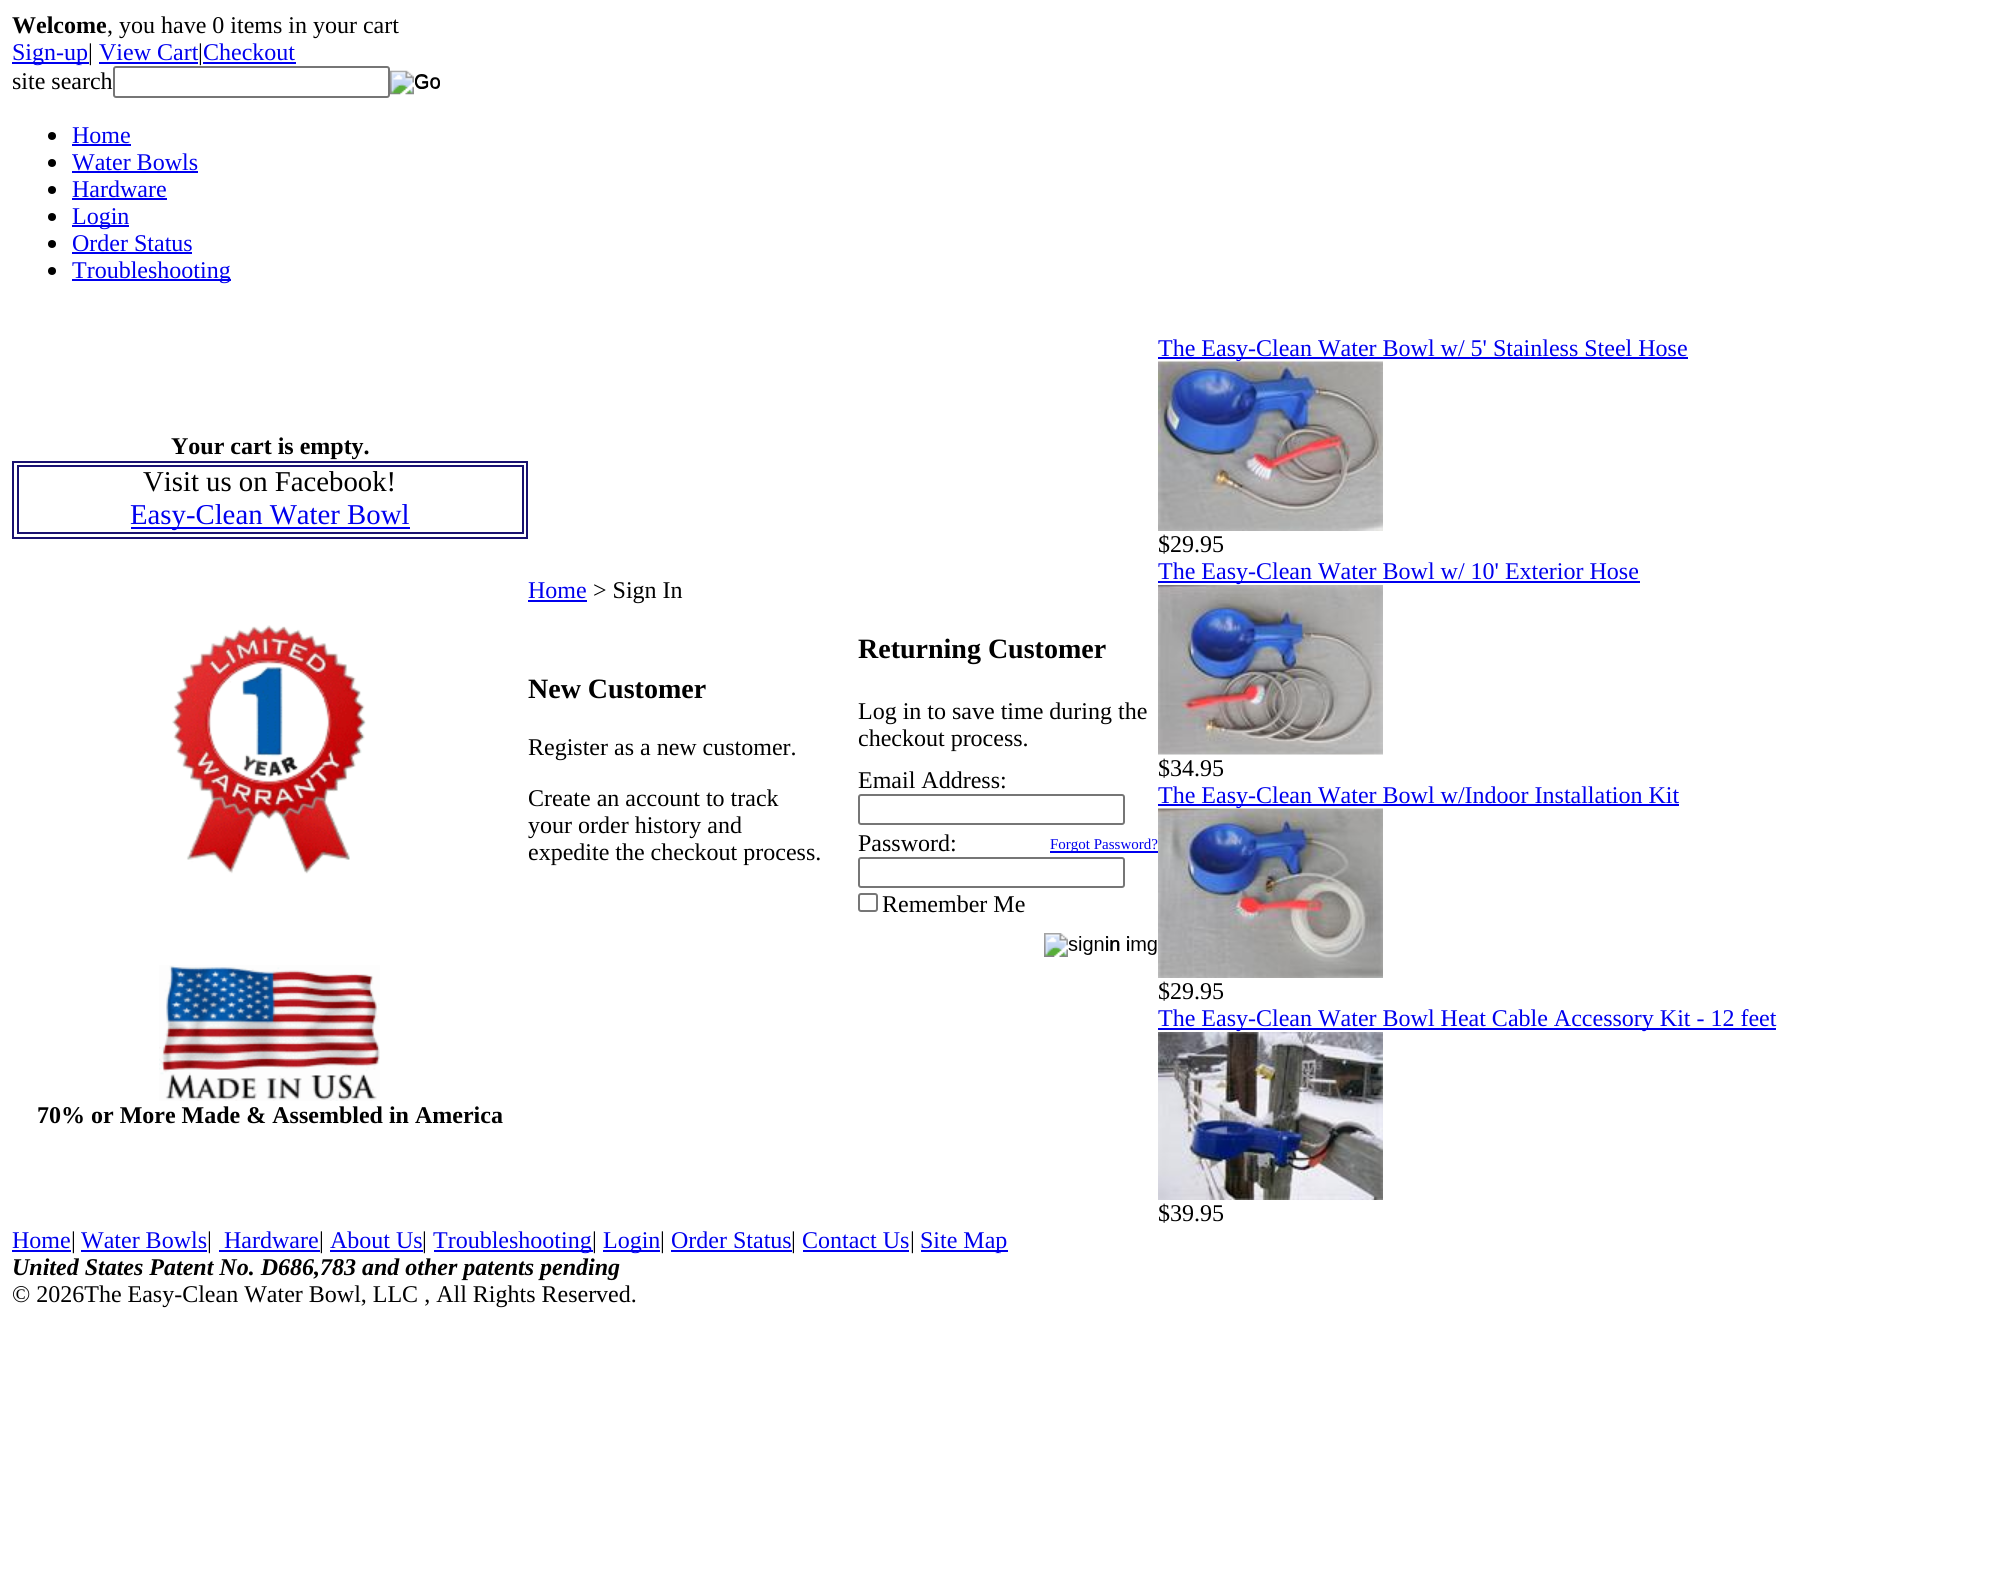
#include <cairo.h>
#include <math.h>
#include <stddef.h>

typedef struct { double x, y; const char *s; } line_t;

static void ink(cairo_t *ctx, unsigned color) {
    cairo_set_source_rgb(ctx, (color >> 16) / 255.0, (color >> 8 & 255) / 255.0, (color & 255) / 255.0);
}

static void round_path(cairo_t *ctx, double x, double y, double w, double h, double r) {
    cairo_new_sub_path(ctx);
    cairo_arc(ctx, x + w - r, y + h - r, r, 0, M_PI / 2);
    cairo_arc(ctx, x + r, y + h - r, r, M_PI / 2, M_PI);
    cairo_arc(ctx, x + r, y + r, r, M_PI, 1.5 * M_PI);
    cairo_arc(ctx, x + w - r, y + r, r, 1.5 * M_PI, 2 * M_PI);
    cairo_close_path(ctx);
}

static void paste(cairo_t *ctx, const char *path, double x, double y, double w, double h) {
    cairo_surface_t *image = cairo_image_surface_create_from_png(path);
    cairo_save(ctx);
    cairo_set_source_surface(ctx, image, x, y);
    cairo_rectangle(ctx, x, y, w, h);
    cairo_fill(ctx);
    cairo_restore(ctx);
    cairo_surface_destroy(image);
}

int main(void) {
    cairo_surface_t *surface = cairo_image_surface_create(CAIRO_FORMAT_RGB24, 2003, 1570);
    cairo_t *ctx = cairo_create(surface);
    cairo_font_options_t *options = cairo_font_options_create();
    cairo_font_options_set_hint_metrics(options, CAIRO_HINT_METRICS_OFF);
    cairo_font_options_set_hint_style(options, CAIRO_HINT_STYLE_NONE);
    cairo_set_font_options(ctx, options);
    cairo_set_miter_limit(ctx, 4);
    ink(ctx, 0xFFFFFF);
    cairo_paint(ctx);
    cairo_select_font_face(ctx, "Liberation Serif", CAIRO_FONT_SLANT_NORMAL, CAIRO_FONT_WEIGHT_BOLD);
    cairo_set_font_size(ctx, 24);
    ink(ctx, 0x000000);
    cairo_move_to(ctx, 12, 33);
    cairo_show_text(ctx, "Welcome");
    cairo_select_font_face(ctx, "Liberation Serif", CAIRO_FONT_SLANT_NORMAL, CAIRO_FONT_WEIGHT_NORMAL);
    cairo_move_to(ctx, 107, 33);
    cairo_show_text(ctx, ", you have 0 items in your cart");
    ink(ctx, 0x0000EE);
    cairo_rectangle(ctx, 12, 62, 77, 2);
    cairo_fill(ctx);
    cairo_move_to(ctx, 12, 60);
    cairo_show_text(ctx, "Sign-up");
    ink(ctx, 0x000000);
    cairo_move_to(ctx, 88, 60);
    cairo_show_text(ctx, "|");
    ink(ctx, 0x0000EE);
    cairo_move_to(ctx, 99, 60);
    cairo_show_text(ctx, "View Cart");
    cairo_rectangle(ctx, 99, 62, 99, 2);
    cairo_fill(ctx);
    ink(ctx, 0x000000);
    cairo_move_to(ctx, 198, 60);
    cairo_show_text(ctx, "|");
    ink(ctx, 0x0000EE);
    cairo_move_to(ctx, 203, 60);
    cairo_show_text(ctx, "Checkout");
    cairo_rectangle(ctx, 203, 62, 93, 2);
    cairo_fill(ctx);
    ink(ctx, 0x000000);
    cairo_move_to(ctx, 12, 89);
    cairo_show_text(ctx, "site search");
    round_path(ctx, 114, 67, 275, 30, 2);
    ink(ctx, 0x767676);
    cairo_stroke(ctx);
    paste(ctx, "media/1.png", 390, 70, 50, 25);
    cairo_select_font_face(ctx, "Liberation Sans", CAIRO_FONT_SLANT_NORMAL, CAIRO_FONT_WEIGHT_NORMAL);
    cairo_set_font_size(ctx, 20);
    ink(ctx, 0x000000);
    cairo_move_to(ctx, 414, 88);
    cairo_show_text(ctx, "Go");
    cairo_new_path(ctx);
    cairo_arc(ctx, 52, 136, 4, 0, 2 * M_PI);
    cairo_fill(ctx);
    cairo_select_font_face(ctx, "Liberation Serif", CAIRO_FONT_SLANT_NORMAL, CAIRO_FONT_WEIGHT_NORMAL);
    cairo_set_font_size(ctx, 24);
    ink(ctx, 0x0000EE);
    cairo_move_to(ctx, 72, 143);
    cairo_show_text(ctx, "Home");
    cairo_rectangle(ctx, 72, 144, 59, 2);
    cairo_fill(ctx);
    ink(ctx, 0x000000);
    cairo_arc(ctx, 52, 163, 4, 0, 2 * M_PI);
    cairo_fill(ctx);
    ink(ctx, 0x0000EE);
    cairo_move_to(ctx, 72, 170);
    cairo_show_text(ctx, "Water Bowls");
    cairo_rectangle(ctx, 72, 171, 126, 2);
    cairo_fill(ctx);
    ink(ctx, 0x000000);
    cairo_arc(ctx, 52, 190, 4, 0, 2 * M_PI);
    cairo_fill(ctx);
    ink(ctx, 0x0000EE);
    cairo_move_to(ctx, 72, 197);
    cairo_show_text(ctx, "Hardware");
    cairo_rectangle(ctx, 72, 198, 95, 2);
    cairo_fill(ctx);
    ink(ctx, 0x000000);
    cairo_arc(ctx, 52, 217, 4, 0, 2 * M_PI);
    cairo_fill(ctx);
    ink(ctx, 0x0000EE);
    cairo_rectangle(ctx, 72, 225, 57, 2);
    cairo_fill(ctx);
    cairo_move_to(ctx, 72, 224);
    cairo_show_text(ctx, "Login");
    ink(ctx, 0x000000);
    cairo_new_path(ctx);
    cairo_arc(ctx, 52, 244, 4, 0, 2 * M_PI);
    cairo_fill(ctx);
    ink(ctx, 0x0000EE);
    cairo_move_to(ctx, 72, 251);
    cairo_show_text(ctx, "Order Status");
    cairo_rectangle(ctx, 72, 252, 120, 2);
    cairo_fill(ctx);
    ink(ctx, 0x000000);
    cairo_arc(ctx, 52, 271, 4, 0, 2 * M_PI);
    cairo_fill(ctx);
    ink(ctx, 0x0000EE);
    cairo_rectangle(ctx, 72, 279, 159, 2);
    cairo_fill(ctx);
    cairo_move_to(ctx, 72, 278);
    cairo_show_text(ctx, "Troubleshooting");
    cairo_select_font_face(ctx, "Liberation Serif", CAIRO_FONT_SLANT_NORMAL, CAIRO_FONT_WEIGHT_BOLD);
    ink(ctx, 0x000000);
    cairo_move_to(ctx, 171, 454);
    cairo_show_text(ctx, "Your cart is empty.");
    cairo_rectangle(ctx, 13, 462, 514, 76);
    ink(ctx, 0x191170);
    cairo_stroke(ctx);
    cairo_rectangle(ctx, 18, 466, 505, 67);
    cairo_stroke(ctx);
    cairo_select_font_face(ctx, "Liberation Serif", CAIRO_FONT_SLANT_NORMAL, CAIRO_FONT_WEIGHT_NORMAL);
    cairo_set_font_size(ctx, 28.75);
    ink(ctx, 0x000000);
    cairo_move_to(ctx, 143, 491);
    cairo_show_text(ctx, "Visit us on Facebook!");
    ink(ctx, 0x0000EE);
    cairo_rectangle(ctx, 131, 527, 279, 2);
    cairo_fill(ctx);
    cairo_move_to(ctx, 130, 524);
    cairo_show_text(ctx, "Easy-Clean Water Bowl");
    paste(ctx, "media/2.png", 172, 625, 194, 249);
    paste(ctx, "media/3.png", 159, 965, 221, 136);
    cairo_select_font_face(ctx, "Liberation Serif", CAIRO_FONT_SLANT_NORMAL, CAIRO_FONT_WEIGHT_BOLD);
    cairo_set_font_size(ctx, 24);
    ink(ctx, 0x000000);
    cairo_move_to(ctx, 37, 1123);
    cairo_show_text(ctx, "70% or More Made & Assembled in America");
    cairo_select_font_face(ctx, "Liberation Serif", CAIRO_FONT_SLANT_NORMAL, CAIRO_FONT_WEIGHT_NORMAL);
    ink(ctx, 0x0000EE);
    cairo_move_to(ctx, 528, 598);
    cairo_show_text(ctx, "Home");
    cairo_rectangle(ctx, 528, 600, 59, 2);
    cairo_fill(ctx);
    ink(ctx, 0x000000);
    cairo_move_to(ctx, 593, 598);
    cairo_show_text(ctx, "> Sign In");
    cairo_select_font_face(ctx, "Liberation Serif", CAIRO_FONT_SLANT_NORMAL, CAIRO_FONT_WEIGHT_BOLD);
    cairo_set_font_size(ctx, 28);
    cairo_move_to(ctx, 528, 698);
    cairo_show_text(ctx, "New Customer");
    cairo_select_font_face(ctx, "Liberation Serif", CAIRO_FONT_SLANT_NORMAL, CAIRO_FONT_WEIGHT_NORMAL);
    cairo_set_font_size(ctx, 24);
    {
        static const line_t items[] = {
            {528, 755, "Register as a new customer."},
            {528, 806, "Create an account to track"},
            {528, 833, "your order history and"},
            {528, 860, "expedite the checkout process."},
        };
        for (size_t i = 0; i < sizeof items / sizeof *items; i++) {
            cairo_move_to(ctx, items[i].x, items[i].y);
            cairo_show_text(ctx, items[i].s);
        }
    }
    cairo_select_font_face(ctx, "Liberation Serif", CAIRO_FONT_SLANT_NORMAL, CAIRO_FONT_WEIGHT_BOLD);
    cairo_set_font_size(ctx, 28);
    cairo_move_to(ctx, 858, 658);
    cairo_show_text(ctx, "Returning Customer");
    cairo_select_font_face(ctx, "Liberation Serif", CAIRO_FONT_SLANT_NORMAL, CAIRO_FONT_WEIGHT_NORMAL);
    cairo_set_font_size(ctx, 24);
    {
        static const line_t items[] = {
            {858, 719, "Log in to save time during the"},
            {858, 746, "checkout process."},
            {858, 788, "Email Address:"},
        };
        for (size_t i = 0; i < sizeof items / sizeof *items; i++) {
            cairo_move_to(ctx, items[i].x, items[i].y);
            cairo_show_text(ctx, items[i].s);
        }
    }
    round_path(ctx, 859, 795, 265, 29, 2);
    ink(ctx, 0x767676);
    cairo_stroke(ctx);
    ink(ctx, 0x000000);
    cairo_move_to(ctx, 858, 851);
    cairo_show_text(ctx, "Password:");
    ink(ctx, 0x0000EE);
    cairo_rectangle(ctx, 1050, 851, 108, 2);
    cairo_fill(ctx);
    cairo_set_font_size(ctx, 15);
    cairo_move_to(ctx, 1050, 849);
    cairo_show_text(ctx, "Forgot Password?");
    round_path(ctx, 859, 858, 265, 29, 2);
    ink(ctx, 0x767676);
    cairo_stroke(ctx);
    round_path(ctx, 859, 894, 18, 17, 2);
    cairo_stroke(ctx);
    cairo_set_font_size(ctx, 24);
    ink(ctx, 0x000000);
    cairo_move_to(ctx, 882, 912);
    cairo_show_text(ctx, "Remember Me");
    paste(ctx, "media/4.png", 1044, 933, 113, 24);
    cairo_select_font_face(ctx, "Liberation Sans", CAIRO_FONT_SLANT_NORMAL, CAIRO_FONT_WEIGHT_NORMAL);
    cairo_set_font_size(ctx, 20);
    cairo_move_to(ctx, 1105, 951);
    cairo_show_text(ctx, "in i");
    ink(ctx, 0x0000EE);
    cairo_rectangle(ctx, 1158, 357, 530, 2);
    cairo_fill(ctx);
    cairo_select_font_face(ctx, "Liberation Serif", CAIRO_FONT_SLANT_NORMAL, CAIRO_FONT_WEIGHT_NORMAL);
    cairo_set_font_size(ctx, 24);
    cairo_move_to(ctx, 1158, 356);
    cairo_show_text(ctx, "The Easy-Clean Water Bowl w/ 5' Stainless Steel Hose");
    paste(ctx, "media/5.png", 1158, 361, 225, 170);
    ink(ctx, 0x000000);
    cairo_move_to(ctx, 1158, 552);
    cairo_show_text(ctx, "$29.95");
    ink(ctx, 0x0000EE);
    cairo_rectangle(ctx, 1158, 581, 482, 2);
    cairo_fill(ctx);
    cairo_move_to(ctx, 1158, 579);
    cairo_show_text(ctx, "The Easy-Clean Water Bowl w/ 10' Exterior Hose");
    paste(ctx, "media/6.png", 1158, 585, 225, 170);
    ink(ctx, 0x000000);
    cairo_move_to(ctx, 1158, 776);
    cairo_show_text(ctx, "$34.95");
    ink(ctx, 0x0000EE);
    cairo_rectangle(ctx, 1158, 804, 521, 2);
    cairo_fill(ctx);
    cairo_move_to(ctx, 1158, 803);
    cairo_show_text(ctx, "The Easy-Clean Water Bowl w/Indoor Installation Kit");
    paste(ctx, "media/7.png", 1158, 808, 225, 170);
    ink(ctx, 0x000000);
    cairo_move_to(ctx, 1158, 999);
    cairo_show_text(ctx, "$29.95");
    ink(ctx, 0x0000EE);
    cairo_rectangle(ctx, 1158, 1028, 618, 2);
    cairo_fill(ctx);
    cairo_move_to(ctx, 1158, 1026);
    cairo_show_text(ctx, "The Easy-Clean Water Bowl Heat Cable Accessory Kit - 12 feet");
    paste(ctx, "media/8.png", 1158, 1032, 225, 168);
    ink(ctx, 0x000000);
    cairo_move_to(ctx, 1158, 1221);
    cairo_show_text(ctx, "$39.95");
    ink(ctx, 0x0000EE);
    cairo_move_to(ctx, 12, 1248);
    cairo_show_text(ctx, "Home");
    cairo_rectangle(ctx, 12, 1250, 59, 2);
    cairo_fill(ctx);
    ink(ctx, 0x000000);
    cairo_move_to(ctx, 71, 1248);
    cairo_show_text(ctx, "|");
    ink(ctx, 0x0000EE);
    cairo_move_to(ctx, 81, 1248);
    cairo_show_text(ctx, "Water Bowls");
    cairo_rectangle(ctx, 81, 1250, 126, 2);
    cairo_fill(ctx);
    ink(ctx, 0x000000);
    cairo_move_to(ctx, 207, 1248);
    cairo_show_text(ctx, "|");
    ink(ctx, 0x0000EE);
    cairo_move_to(ctx, 224, 1248);
    cairo_show_text(ctx, "Hardware");
    cairo_rectangle(ctx, 219, 1250, 101, 2);
    cairo_fill(ctx);
    ink(ctx, 0x000000);
    cairo_move_to(ctx, 319, 1248);
    cairo_show_text(ctx, "|");
    ink(ctx, 0x0000EE);
    cairo_move_to(ctx, 330, 1248);
    cairo_show_text(ctx, "About Us");
    cairo_rectangle(ctx, 330, 1250, 93, 2);
    cairo_fill(ctx);
    ink(ctx, 0x000000);
    cairo_move_to(ctx, 422, 1248);
    cairo_show_text(ctx, "|");
    ink(ctx, 0x0000EE);
    cairo_rectangle(ctx, 434, 1250, 159, 2);
    cairo_fill(ctx);
    cairo_move_to(ctx, 433, 1248);
    cairo_show_text(ctx, "Troubleshooting");
    ink(ctx, 0x000000);
    cairo_move_to(ctx, 592, 1248);
    cairo_show_text(ctx, "|");
    ink(ctx, 0x0000EE);
    cairo_rectangle(ctx, 603, 1250, 57, 2);
    cairo_fill(ctx);
    cairo_move_to(ctx, 603, 1248);
    cairo_show_text(ctx, "Login");
    ink(ctx, 0x000000);
    cairo_move_to(ctx, 660, 1248);
    cairo_show_text(ctx, "|");
    ink(ctx, 0x0000EE);
    cairo_move_to(ctx, 671, 1248);
    cairo_show_text(ctx, "Order Status");
    cairo_rectangle(ctx, 671, 1250, 121, 2);
    cairo_fill(ctx);
    ink(ctx, 0x000000);
    cairo_move_to(ctx, 791, 1248);
    cairo_show_text(ctx, "|");
    ink(ctx, 0x0000EE);
    cairo_move_to(ctx, 802, 1248);
    cairo_show_text(ctx, "Contact Us");
    cairo_rectangle(ctx, 803, 1250, 106, 2);
    cairo_fill(ctx);
    ink(ctx, 0x000000);
    cairo_move_to(ctx, 910, 1248);
    cairo_show_text(ctx, "|");
    ink(ctx, 0x0000EE);
    cairo_rectangle(ctx, 921, 1250, 87, 2);
    cairo_fill(ctx);
    cairo_move_to(ctx, 920, 1248);
    cairo_show_text(ctx, "Site Map");
    cairo_select_font_face(ctx, "Liberation Serif", CAIRO_FONT_SLANT_ITALIC, CAIRO_FONT_WEIGHT_BOLD);
    ink(ctx, 0x000000);
    cairo_move_to(ctx, 12, 1275);
    cairo_show_text(ctx, "United States Patent No. D686,783 and other patents pending");
    cairo_select_font_face(ctx, "Liberation Serif", CAIRO_FONT_SLANT_NORMAL, CAIRO_FONT_WEIGHT_NORMAL);
    cairo_move_to(ctx, 12, 1302);
    cairo_show_text(ctx, "© 2026The Easy-Clean Water Bowl, LLC , All Rights Reserved.");
    cairo_surface_write_to_png(surface, "image.png");
    cairo_font_options_destroy(options);
    cairo_destroy(ctx);
    cairo_surface_destroy(surface);
    return 0;
}
